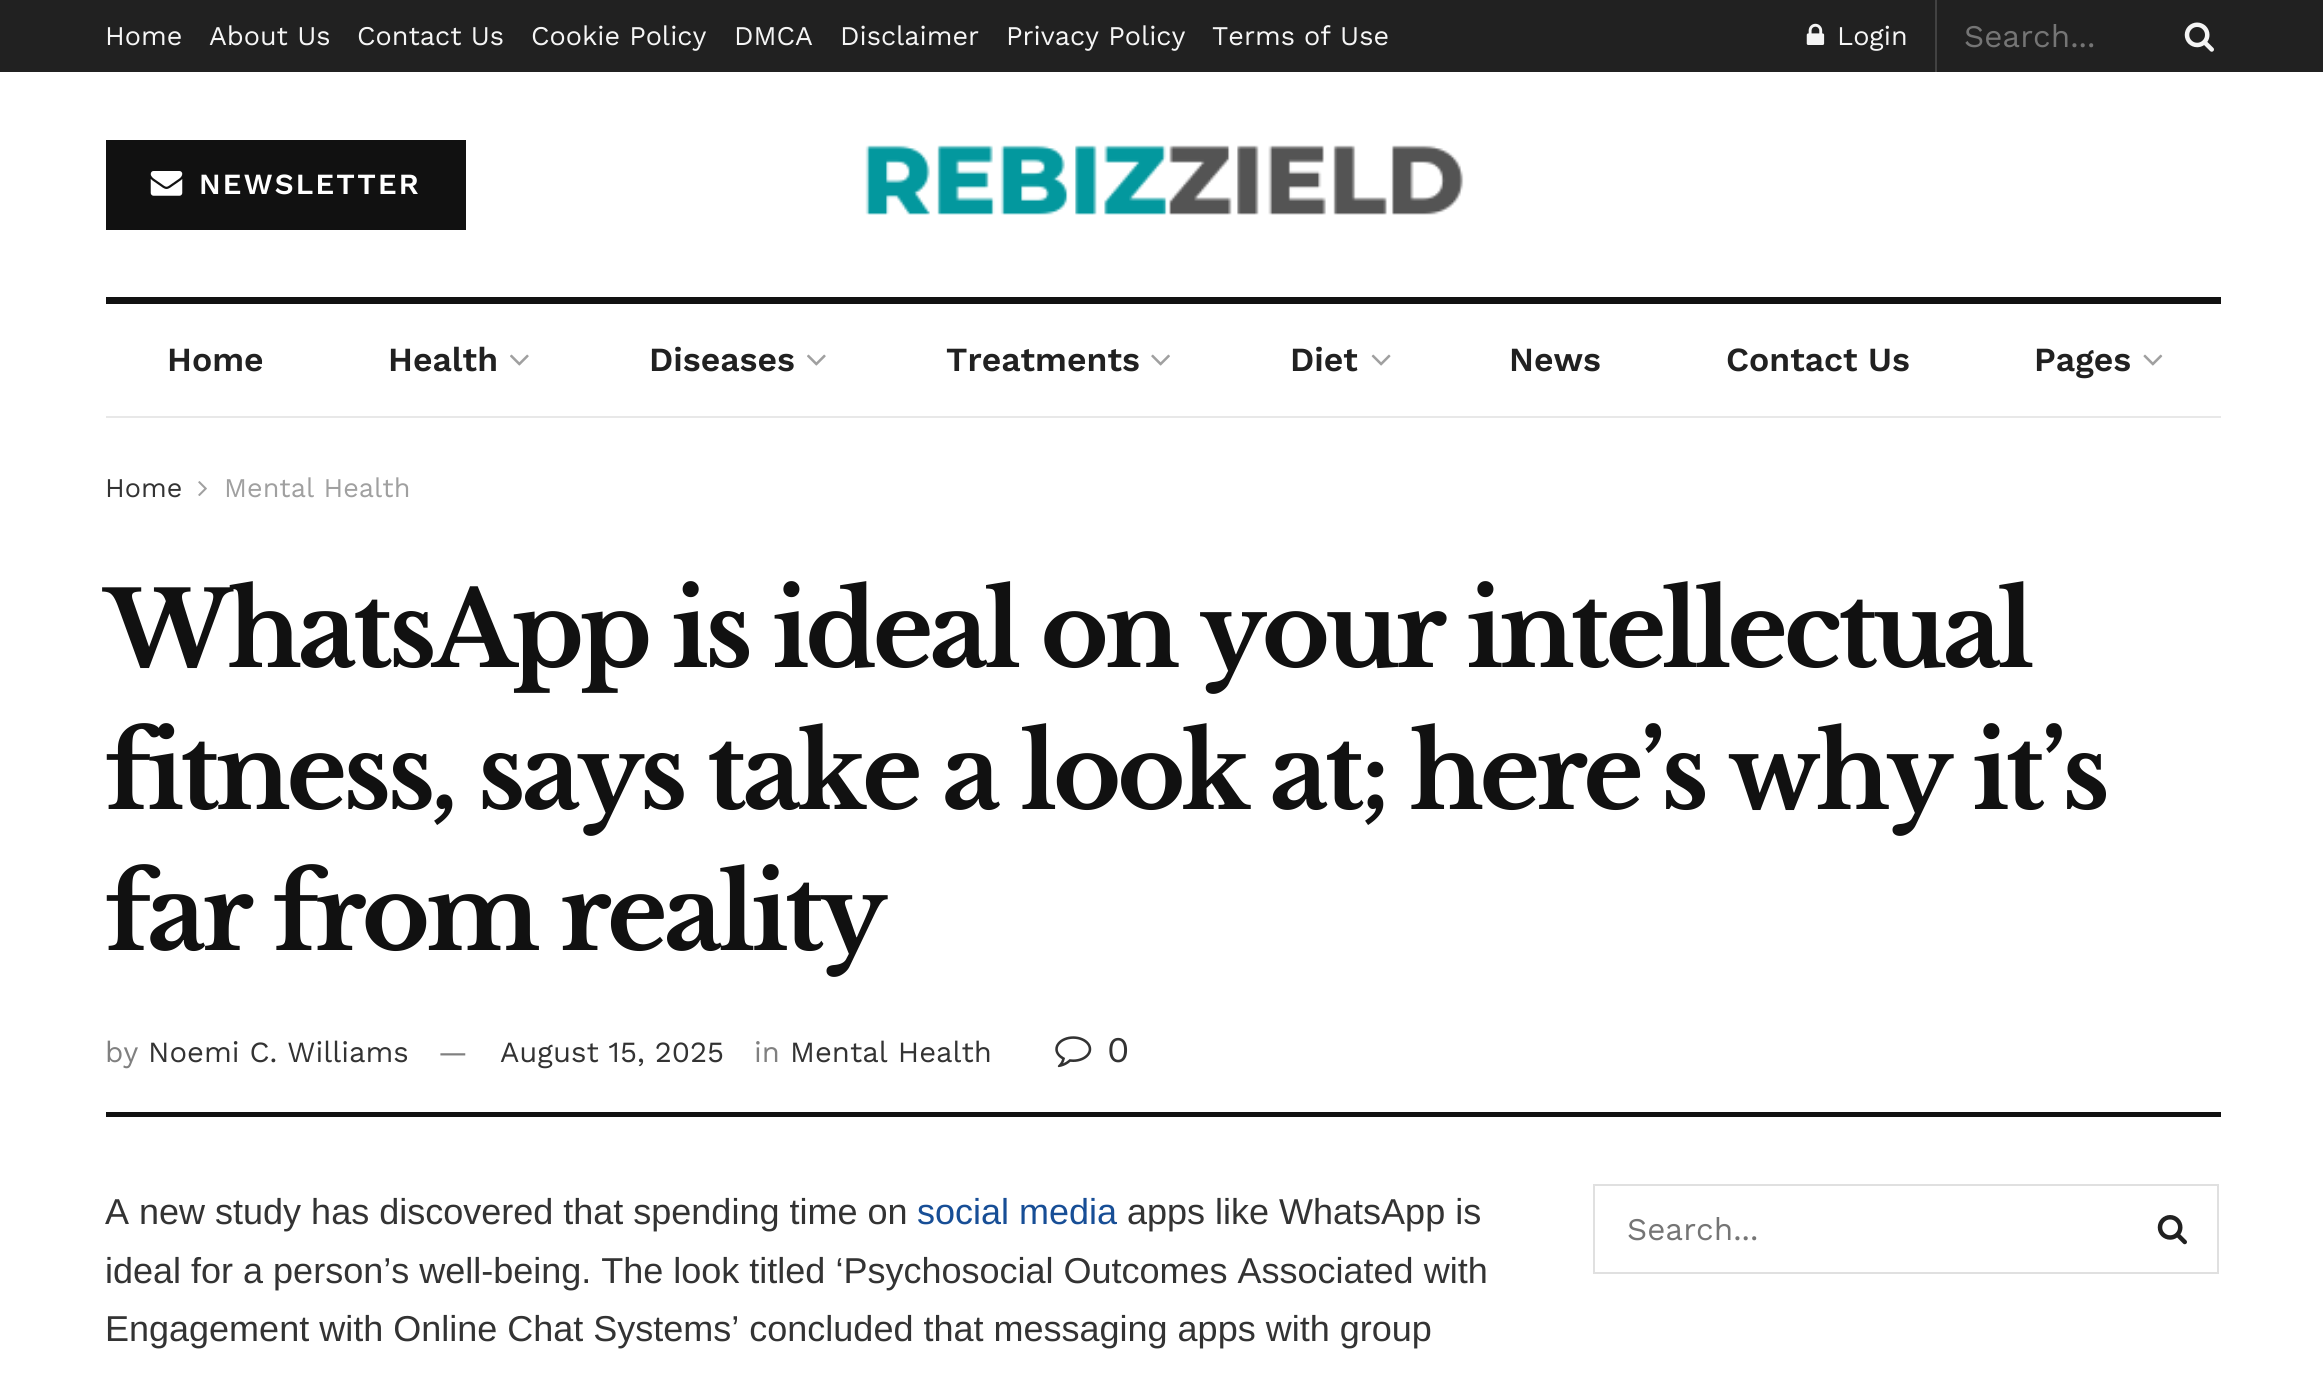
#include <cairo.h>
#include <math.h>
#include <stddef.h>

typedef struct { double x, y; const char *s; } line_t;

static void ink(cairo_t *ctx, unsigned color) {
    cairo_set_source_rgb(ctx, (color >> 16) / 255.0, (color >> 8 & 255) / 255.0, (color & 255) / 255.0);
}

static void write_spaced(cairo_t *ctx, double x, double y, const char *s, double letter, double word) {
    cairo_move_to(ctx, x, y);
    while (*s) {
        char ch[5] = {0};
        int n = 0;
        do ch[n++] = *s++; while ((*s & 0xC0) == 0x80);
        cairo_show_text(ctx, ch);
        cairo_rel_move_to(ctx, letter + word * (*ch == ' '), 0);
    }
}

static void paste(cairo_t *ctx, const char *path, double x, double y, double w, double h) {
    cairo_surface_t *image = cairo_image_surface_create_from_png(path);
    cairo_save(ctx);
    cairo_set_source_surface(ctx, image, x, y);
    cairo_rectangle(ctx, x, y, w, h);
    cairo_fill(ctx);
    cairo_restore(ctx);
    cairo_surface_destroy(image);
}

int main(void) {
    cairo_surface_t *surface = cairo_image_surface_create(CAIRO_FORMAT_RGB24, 2323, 1382);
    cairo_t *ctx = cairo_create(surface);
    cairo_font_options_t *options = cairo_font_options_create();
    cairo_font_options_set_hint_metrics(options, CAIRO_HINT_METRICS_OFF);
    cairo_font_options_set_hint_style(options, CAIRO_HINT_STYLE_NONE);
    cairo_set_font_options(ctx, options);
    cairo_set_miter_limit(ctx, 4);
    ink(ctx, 0xFFFFFF);
    cairo_paint(ctx);
    ink(ctx, 0x212121);
    cairo_rectangle(ctx, 0, 0, 2323, 72);
    cairo_fill(ctx);
    cairo_select_font_face(ctx, "Work Sans", CAIRO_FONT_SLANT_NORMAL, CAIRO_FONT_WEIGHT_NORMAL);
    cairo_set_font_size(ctx, 27);
    ink(ctx, 0xF5F5F5);
    {
        static const line_t items[] = {
            {105, 45, "Home"},
            {209, 45, "About Us"},
            {357, 45, "Contact Us"},
            {531, 45, "Cookie Policy"},
            {734, 45, "DMCA"},
            {840, 45, "Disclaimer"},
            {1006, 45, "Privacy Policy"},
            {1212, 45, "Terms of Use"},
        };
        for (size_t i = 0; i < sizeof items / sizeof *items; i++) {
            cairo_move_to(ctx, items[i].x, items[i].y);
            cairo_show_text(ctx, items[i].s);
        }
    }
    ink(ctx, 0x424242);
    cairo_rectangle(ctx, 1935, 0, 2, 72);
    cairo_fill(ctx);
    paste(ctx, "media/1.png", 1806, 23, 19, 22);
    ink(ctx, 0xF5F5F5);
    cairo_move_to(ctx, 1837, 45);
    cairo_show_text(ctx, "Login");
    cairo_set_font_size(ctx, 31.5);
    ink(ctx, 0x757575);
    cairo_move_to(ctx, 1964, 47);
    cairo_show_text(ctx, "Search...");
    paste(ctx, "media/2.png", 2184, 22, 30, 30);
    ink(ctx, 0x111111);
    cairo_rectangle(ctx, 106, 140, 360, 90);
    cairo_fill(ctx);
    paste(ctx, "media/3.png", 150, 171, 33, 25);
    cairo_select_font_face(ctx, "Work Sans SemiBold", CAIRO_FONT_SLANT_NORMAL, CAIRO_FONT_WEIGHT_NORMAL);
    cairo_set_font_size(ctx, 29.25);
    ink(ctx, 0xFFFFFF);
    write_spaced(ctx, 199, 194, "NEWSLETTER", 2.25, 0);
    paste(ctx, "media/4.png", 865, 145, 599, 70);
    ink(ctx, 0x111111);
    cairo_rectangle(ctx, 106, 297, 2115, 7);
    cairo_fill(ctx);
    ink(ctx, 0xE8E8E8);
    cairo_rectangle(ctx, 106, 416, 2115, 2);
    cairo_fill(ctx);
    cairo_set_font_size(ctx, 33.75);
    ink(ctx, 0x212121);
    cairo_move_to(ctx, 167, 371);
    cairo_show_text(ctx, "Home");
    cairo_move_to(ctx, 388, 371);
    cairo_show_text(ctx, "Health");
    paste(ctx, "media/5.png", 510, 354, 19, 12);
    cairo_move_to(ctx, 649, 371);
    cairo_show_text(ctx, "Diseases");
    paste(ctx, "media/5.png", 807, 354, 19, 12);
    cairo_move_to(ctx, 946, 371);
    cairo_show_text(ctx, "Treatments");
    paste(ctx, "media/6.png", 1151, 354, 19, 12);
    cairo_move_to(ctx, 1290, 371);
    cairo_show_text(ctx, "Diet");
    paste(ctx, "media/7.png", 1371, 354, 20, 12);
    {
        static const line_t items[] = {
            {1509, 371, "News"},
            {1726, 371, "Contact Us"},
            {2034, 371, "Pages"},
        };
        for (size_t i = 0; i < sizeof items / sizeof *items; i++) {
            cairo_move_to(ctx, items[i].x, items[i].y);
            cairo_show_text(ctx, items[i].s);
        }
    }
    paste(ctx, "media/8.png", 2143, 354, 20, 12);
    cairo_select_font_face(ctx, "Work Sans", CAIRO_FONT_SLANT_NORMAL, CAIRO_FONT_WEIGHT_NORMAL);
    cairo_set_font_size(ctx, 27);
    ink(ctx, 0x333333);
    cairo_move_to(ctx, 105, 497);
    cairo_show_text(ctx, "Home");
    paste(ctx, "media/9.png", 198, 481, 9, 15);
    ink(ctx, 0xA0A0A0);
    cairo_move_to(ctx, 224, 497);
    cairo_show_text(ctx, "Mental Health");
    ink(ctx, 0x111111);
    cairo_rectangle(ctx, 106, 1112, 2115, 5);
    cairo_fill(ctx);
    cairo_select_font_face(ctx, "Libre Baskerville", CAIRO_FONT_SLANT_NORMAL, CAIRO_FONT_WEIGHT_BOLD);
    cairo_set_font_size(ctx, 103.5);
    {
        static const line_t items[] = {
            {105, 667, "WhatsApp is ideal on your intellectual"},
            {105, 809, "fitness, says take a look at; here’s why it’s"},
            {105, 950, "far from reality"},
        };
        for (size_t i = 0; i < sizeof items / sizeof *items; i++) {
            write_spaced(ctx, items[i].x, items[i].y, items[i].s, -4.15, 0);
        }
    }
    cairo_select_font_face(ctx, "Work Sans", CAIRO_FONT_SLANT_NORMAL, CAIRO_FONT_WEIGHT_NORMAL);
    cairo_set_font_size(ctx, 29.25);
    ink(ctx, 0x808080);
    cairo_move_to(ctx, 105, 1062);
    cairo_show_text(ctx, "by");
    ink(ctx, 0x333333);
    cairo_move_to(ctx, 148, 1062);
    cairo_show_text(ctx, "Noemi C. Williams");
    ink(ctx, 0x808080);
    cairo_move_to(ctx, 438, 1062);
    cairo_show_text(ctx, "—");
    ink(ctx, 0x333333);
    cairo_move_to(ctx, 500, 1062);
    cairo_show_text(ctx, "August 15, 2025");
    ink(ctx, 0x808080);
    cairo_move_to(ctx, 754, 1062);
    cairo_show_text(ctx, "in");
    ink(ctx, 0x333333);
    cairo_move_to(ctx, 790, 1062);
    cairo_show_text(ctx, "Mental Health");
    paste(ctx, "media/10.png", 1055, 1036, 37, 32);
    cairo_set_font_size(ctx, 36);
    cairo_move_to(ctx, 1107, 1062);
    cairo_show_text(ctx, "0");
    cairo_select_font_face(ctx, "Liberation Sans", CAIRO_FONT_SLANT_NORMAL, CAIRO_FONT_WEIGHT_NORMAL);
    cairo_move_to(ctx, 105, 1224);
    cairo_show_text(ctx, "A new study has discovered that spending time on");
    ink(ctx, 0x174E96);
    cairo_move_to(ctx, 917, 1224);
    cairo_show_text(ctx, "social media");
    ink(ctx, 0x333333);
    {
        static const line_t items[] = {
            {1127, 1224, "apps like WhatsApp is"},
            {105, 1283, "ideal for a person’s well-being. The look titled ‘Psychosocial Outcomes Associated with"},
            {105, 1341, "Engagement with Online Chat Systems’ concluded that messaging apps with group"},
        };
        for (size_t i = 0; i < sizeof items / sizeof *items; i++) {
            cairo_move_to(ctx, items[i].x, items[i].y);
            cairo_show_text(ctx, items[i].s);
        }
    }
    cairo_rectangle(ctx, 1594, 1185, 624, 88);
    ink(ctx, 0xE0E0E0);
    cairo_stroke(ctx);
    cairo_select_font_face(ctx, "Work Sans", CAIRO_FONT_SLANT_NORMAL, CAIRO_FONT_WEIGHT_NORMAL);
    cairo_set_font_size(ctx, 31.5);
    ink(ctx, 0x757575);
    cairo_move_to(ctx, 1627, 1240);
    cairo_show_text(ctx, "Search...");
    paste(ctx, "media/11.png", 2157, 1215, 30, 30);
    cairo_surface_write_to_png(surface, "image.png");
    cairo_font_options_destroy(options);
    cairo_destroy(ctx);
    cairo_surface_destroy(surface);
    return 0;
}
